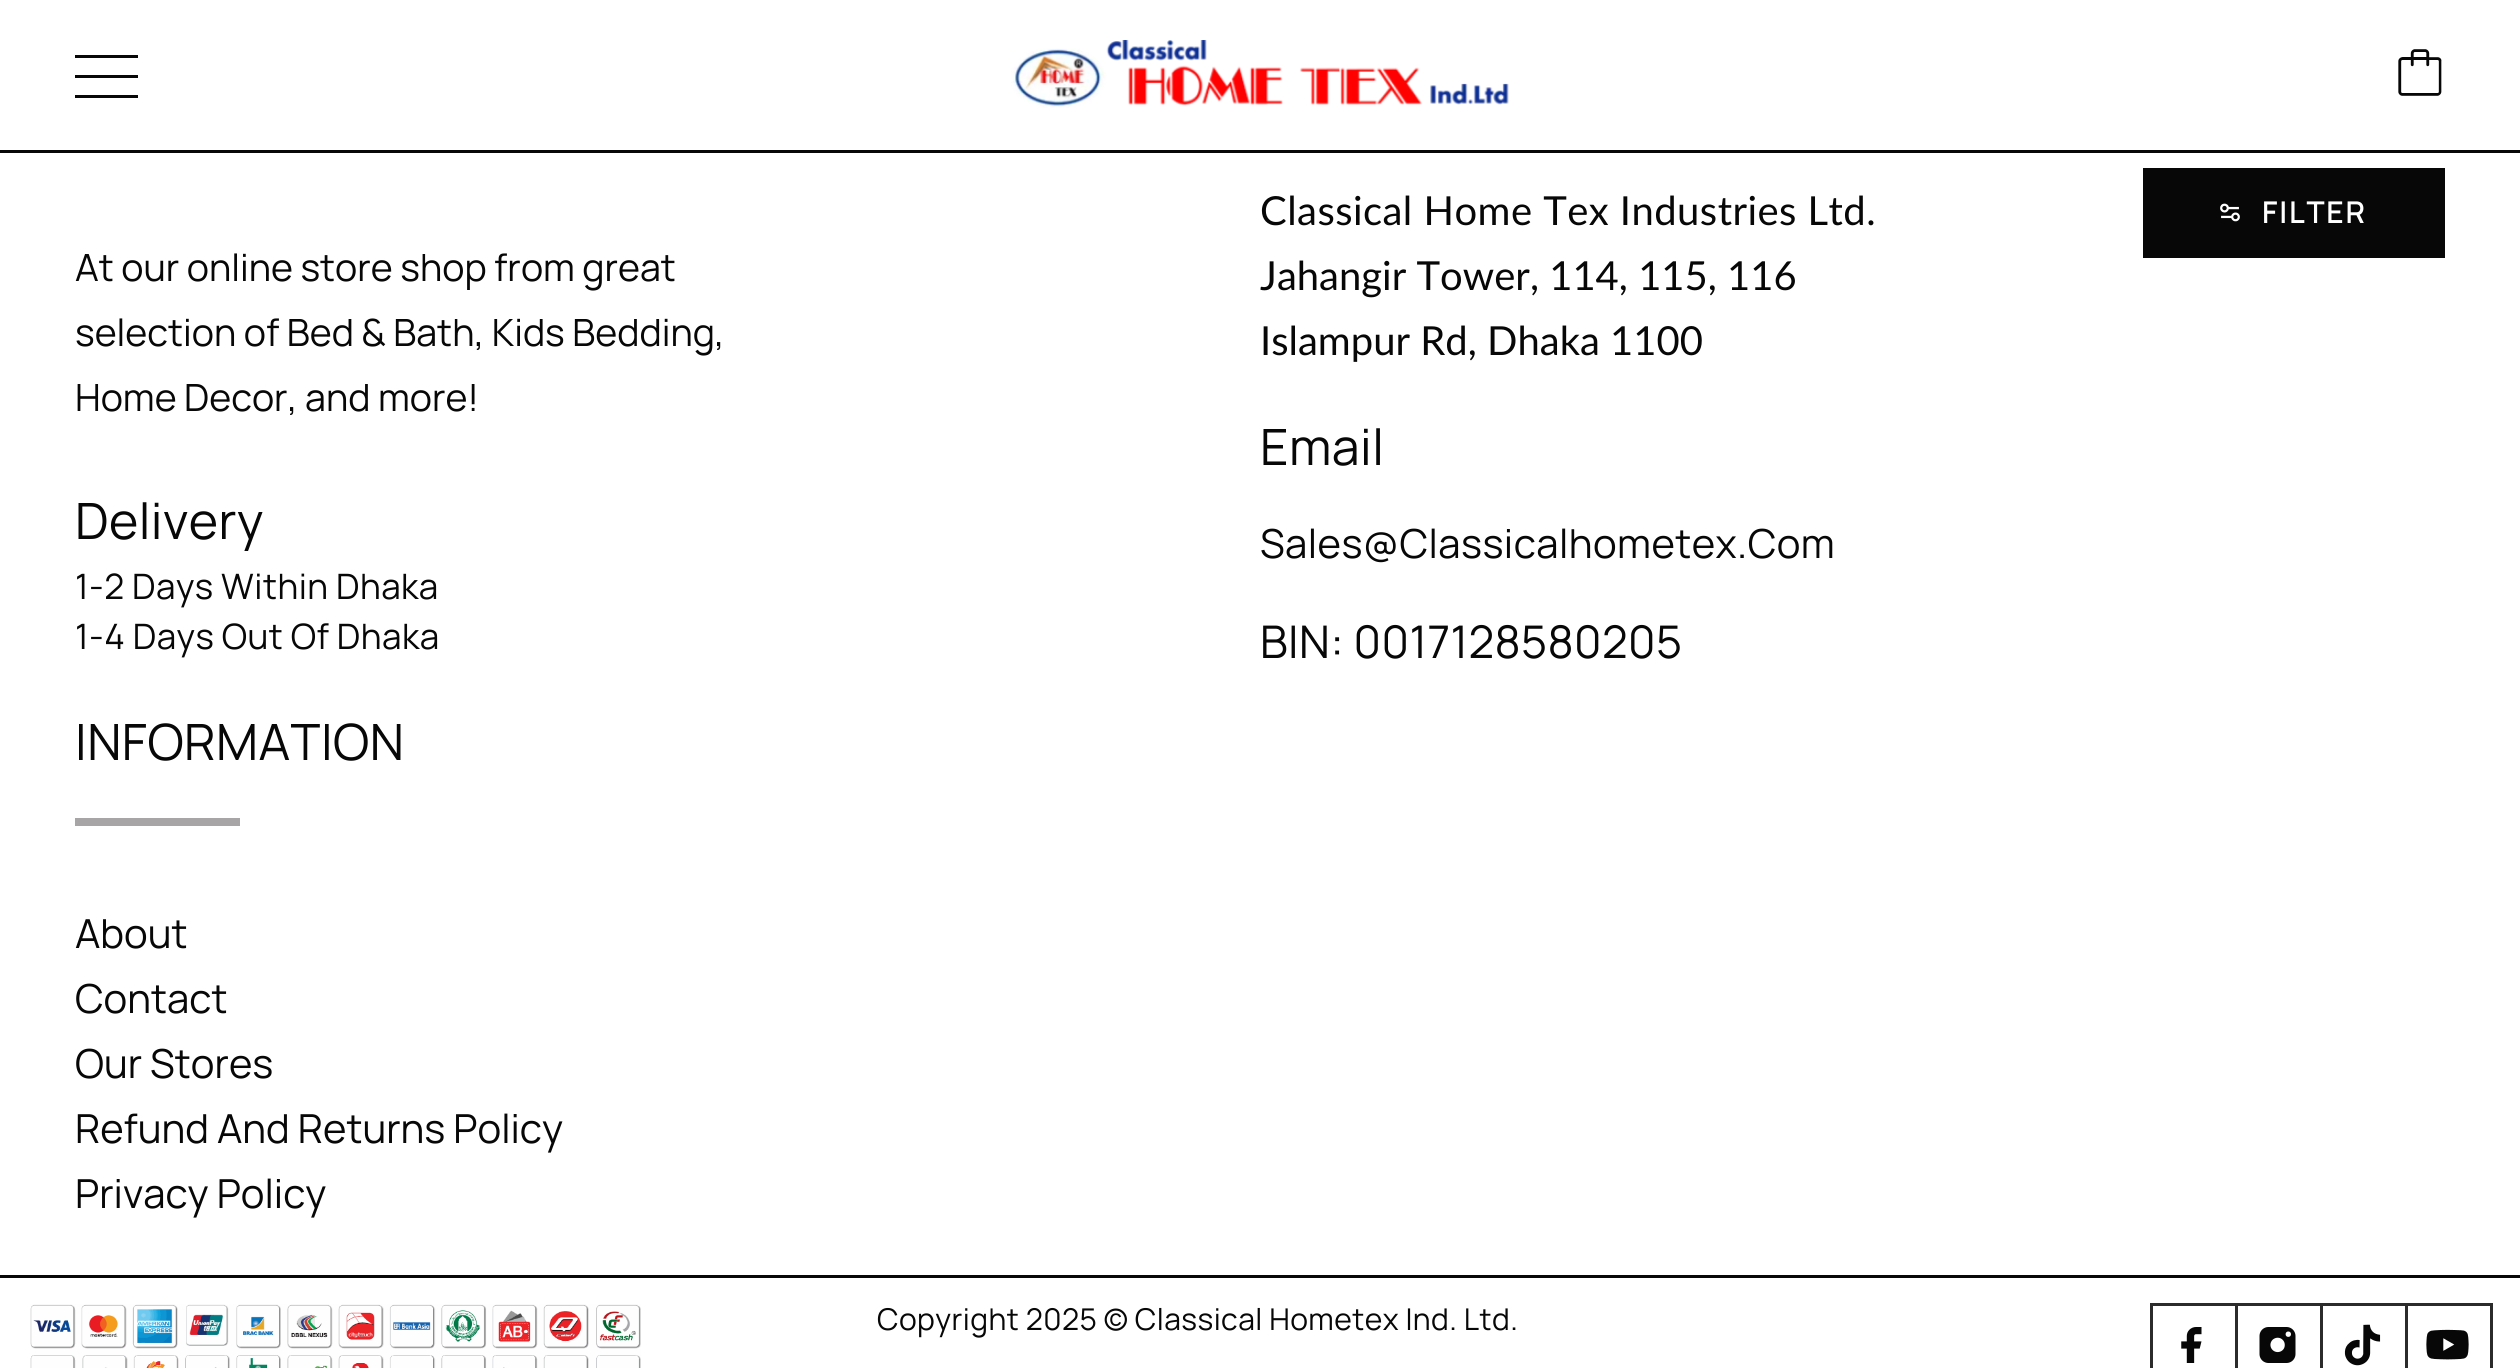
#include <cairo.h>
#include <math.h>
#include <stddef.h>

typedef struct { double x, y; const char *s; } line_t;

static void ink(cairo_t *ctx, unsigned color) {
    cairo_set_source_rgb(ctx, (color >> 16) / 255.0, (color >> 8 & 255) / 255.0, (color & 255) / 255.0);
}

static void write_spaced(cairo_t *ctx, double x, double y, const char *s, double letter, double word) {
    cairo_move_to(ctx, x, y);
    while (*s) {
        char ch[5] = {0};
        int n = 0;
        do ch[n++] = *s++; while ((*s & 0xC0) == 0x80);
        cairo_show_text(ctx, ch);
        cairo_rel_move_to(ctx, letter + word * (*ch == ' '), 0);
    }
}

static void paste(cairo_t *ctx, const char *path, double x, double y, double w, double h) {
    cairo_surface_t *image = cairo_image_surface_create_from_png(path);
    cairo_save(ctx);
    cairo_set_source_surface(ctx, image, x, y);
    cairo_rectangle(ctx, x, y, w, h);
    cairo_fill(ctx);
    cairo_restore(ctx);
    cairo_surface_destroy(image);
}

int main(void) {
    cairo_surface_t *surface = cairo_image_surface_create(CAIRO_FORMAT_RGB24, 2520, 1368);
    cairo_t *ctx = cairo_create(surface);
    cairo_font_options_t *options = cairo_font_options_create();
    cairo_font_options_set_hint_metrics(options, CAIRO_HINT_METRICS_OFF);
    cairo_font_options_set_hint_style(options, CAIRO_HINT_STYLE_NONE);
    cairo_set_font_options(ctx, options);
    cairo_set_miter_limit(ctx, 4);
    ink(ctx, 0xFFFFFF);
    cairo_paint(ctx);
    cairo_select_font_face(ctx, "Manrope", CAIRO_FONT_SLANT_NORMAL, CAIRO_FONT_WEIGHT_NORMAL);
    cairo_set_font_size(ctx, 37.5);
    ink(ctx, 0x070707);
    {
        static const line_t items[] = {
            {75, 281, "At our online store shop from great"},
            {75, 346, "selection of Bed & Bath, Kids Bedding,"},
            {75, 411, "Home Decor, and more!"},
        };
        for (size_t i = 0; i < sizeof items / sizeof *items; i++) {
            cairo_move_to(ctx, items[i].x, items[i].y);
            cairo_show_text(ctx, items[i].s);
        }
    }
    cairo_set_font_size(ctx, 50);
    write_spaced(ctx, 75, 539, "Delivery", 0.45, 0);
    cairo_set_font_size(ctx, 35);
    write_spaced(ctx, 75, 599, "1-2 Days Within Dhaka", 0.45, 0);
    write_spaced(ctx, 75, 649, "1-4 Days Out Of Dhaka", 0.45, 0);
    cairo_select_font_face(ctx, "Lato", CAIRO_FONT_SLANT_NORMAL, CAIRO_FONT_WEIGHT_NORMAL);
    cairo_set_font_size(ctx, 40);
    write_spaced(ctx, 1260, 225, "Classical Home Tex Industries Ltd.", 0.45, 0);
    cairo_move_to(ctx, 1260, 290);
    cairo_show_text(ctx, "Jahangir Tower, 114, 115, 116");
    cairo_move_to(ctx, 1260, 355);
    cairo_show_text(ctx, "Islampur Rd, Dhaka 1100");
    cairo_select_font_face(ctx, "Manrope", CAIRO_FONT_SLANT_NORMAL, CAIRO_FONT_WEIGHT_NORMAL);
    cairo_set_font_size(ctx, 50);
    write_spaced(ctx, 1260, 465, "Email", 0.45, 0);
    cairo_set_font_size(ctx, 40);
    write_spaced(ctx, 1260, 558, "Sales@Classicalhometex.Com", 0.45, 0);
    cairo_set_font_size(ctx, 45);
    write_spaced(ctx, 1260, 658, "BIN: 0017128580205", 0.45, 0);
    cairo_set_font_size(ctx, 50);
    write_spaced(ctx, 75, 760, "INFORMATION", 0.45, 0);
    ink(ctx, 0xA7A5A5);
    cairo_rectangle(ctx, 75, 818, 165, 8);
    cairo_fill(ctx);
    cairo_set_font_size(ctx, 40);
    ink(ctx, 0x070707);
    {
        static const line_t items[] = {
            {75, 948, "About"},
            {75, 1013, "Contact"},
            {75, 1078, "Our Stores"},
            {75, 1143, "Refund And Returns Policy"},
            {75, 1208, "Privacy Policy"},
        };
        for (size_t i = 0; i < sizeof items / sizeof *items; i++) {
            cairo_move_to(ctx, items[i].x, items[i].y);
            cairo_show_text(ctx, items[i].s);
        }
    }
    cairo_rectangle(ctx, 0, 1275, 2520, 3);
    cairo_fill(ctx);
    paste(ctx, "media/1.png", 30, 1304, 611, 64);
    cairo_set_font_size(ctx, 30);
    write_spaced(ctx, 877, 1330, "Copyright 2025 © Classical Hometex Ind. Ltd.", 0.45, 0);
    paste(ctx, "media/2.png", 2181, 1327, 21, 36);
    cairo_rectangle(ctx, 2151.5, 1304.5, 85, 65);
    ink(ctx, 0x2B2B2B);
    cairo_set_line_width(ctx, 3);
    cairo_stroke(ctx);
    paste(ctx, "media/3.png", 2259, 1327, 37, 36);
    cairo_rectangle(ctx, 2236.5, 1304.5, 85, 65);
    cairo_stroke(ctx);
    paste(ctx, "media/4.png", 2344, 1324, 37, 42);
    cairo_rectangle(ctx, 2321.5, 1304.5, 85, 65);
    cairo_stroke(ctx);
    paste(ctx, "media/5.png", 2426, 1329, 43, 31);
    cairo_rectangle(ctx, 2406.5, 1304.5, 85, 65);
    cairo_stroke(ctx);
    ink(ctx, 0x070707);
    cairo_rectangle(ctx, 0, 150, 2520, 3);
    cairo_fill(ctx);
    cairo_new_path(ctx);
    cairo_move_to(ctx, 138, 58);
    cairo_line_to(ctx, 75, 58);
    cairo_line_to(ctx, 75, 55);
    cairo_line_to(ctx, 138, 55);
    cairo_close_path(ctx);
    cairo_move_to(ctx, 138, 78);
    cairo_line_to(ctx, 75, 78);
    cairo_line_to(ctx, 75, 75);
    cairo_line_to(ctx, 138, 75);
    cairo_close_path(ctx);
    cairo_move_to(ctx, 138, 98);
    cairo_line_to(ctx, 75, 98);
    cairo_line_to(ctx, 75, 95);
    cairo_line_to(ctx, 138, 95);
    cairo_close_path(ctx);
    cairo_fill(ctx);
    paste(ctx, "media/6.png", 1011, 40, 498, 68);
    paste(ctx, "media/7.png", 2398, 49, 44, 47);
    cairo_rectangle(ctx, 2143, 168, 302, 90);
    cairo_fill(ctx);
    paste(ctx, "media/8.png", 2220, 203, 20, 19);
    cairo_select_font_face(ctx, "Manrope SemiBold", CAIRO_FONT_SLANT_NORMAL, CAIRO_FONT_WEIGHT_NORMAL);
    ink(ctx, 0xFFFFFF);
    write_spaced(ctx, 2262, 223, "FILTER", 1.75, 0);
    cairo_surface_write_to_png(surface, "image.png");
    cairo_font_options_destroy(options);
    cairo_destroy(ctx);
    cairo_surface_destroy(surface);
    return 0;
}
